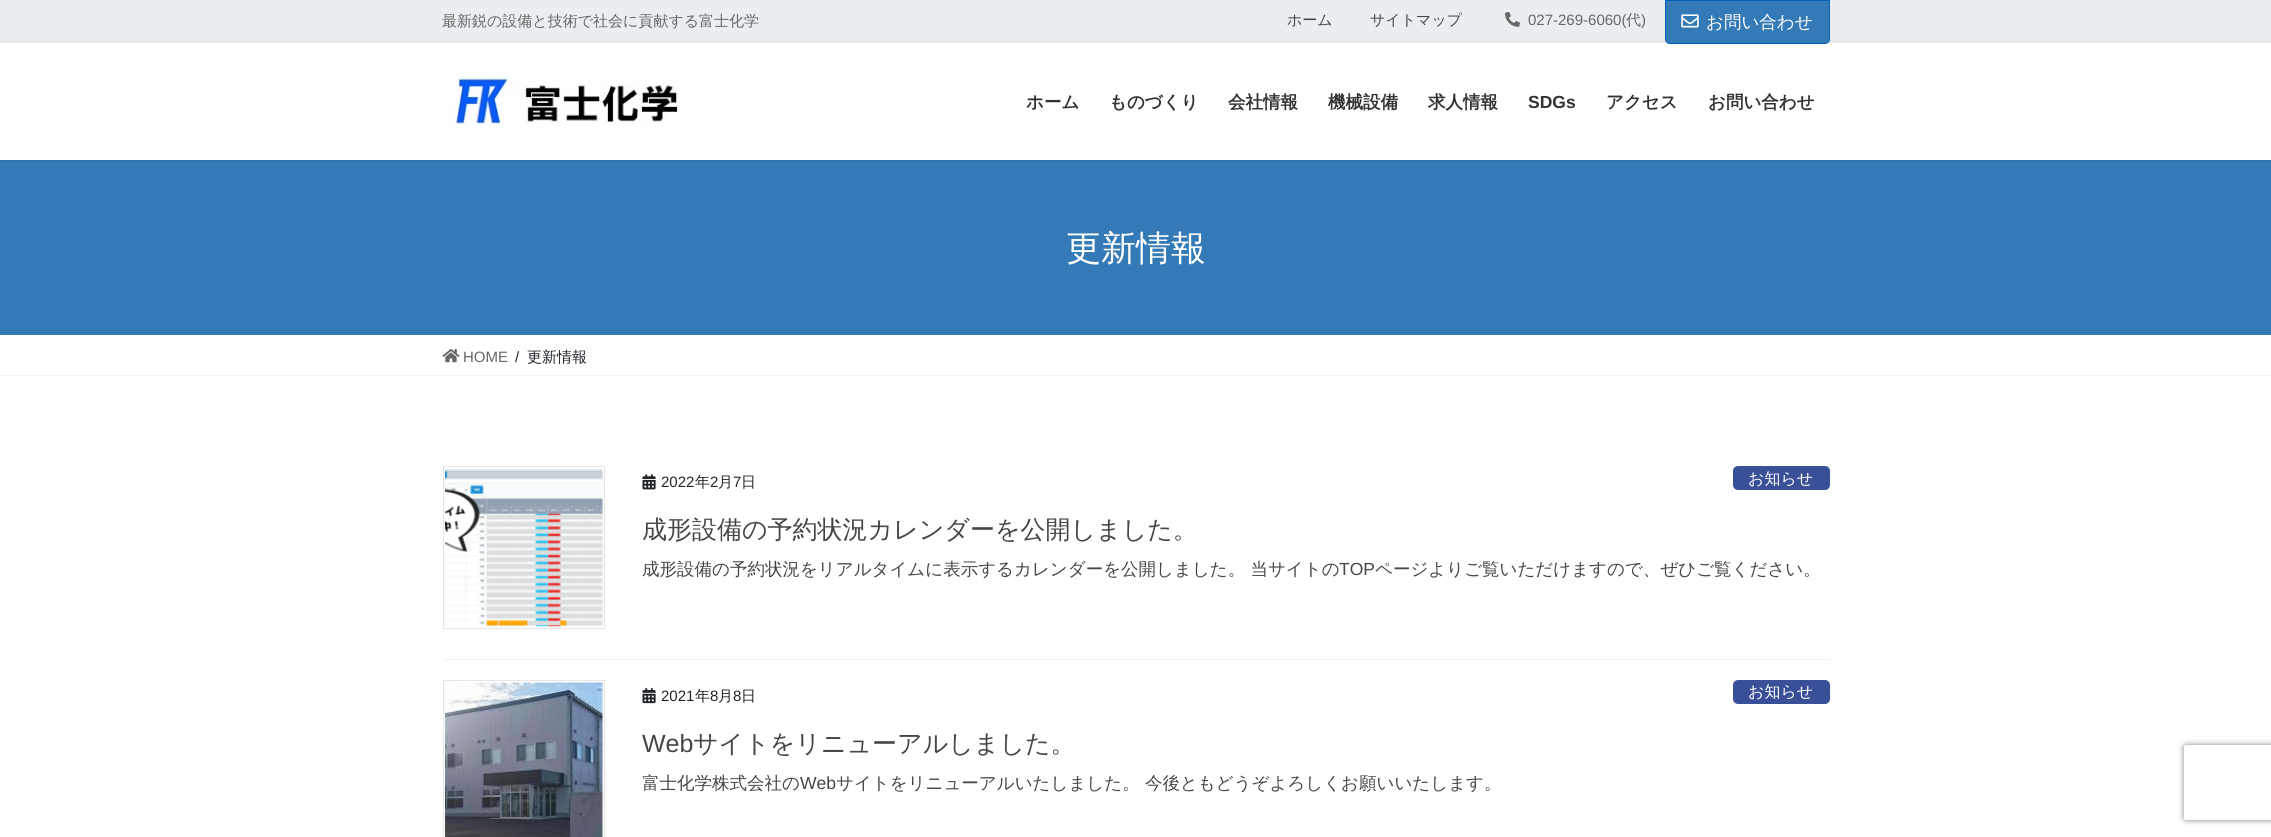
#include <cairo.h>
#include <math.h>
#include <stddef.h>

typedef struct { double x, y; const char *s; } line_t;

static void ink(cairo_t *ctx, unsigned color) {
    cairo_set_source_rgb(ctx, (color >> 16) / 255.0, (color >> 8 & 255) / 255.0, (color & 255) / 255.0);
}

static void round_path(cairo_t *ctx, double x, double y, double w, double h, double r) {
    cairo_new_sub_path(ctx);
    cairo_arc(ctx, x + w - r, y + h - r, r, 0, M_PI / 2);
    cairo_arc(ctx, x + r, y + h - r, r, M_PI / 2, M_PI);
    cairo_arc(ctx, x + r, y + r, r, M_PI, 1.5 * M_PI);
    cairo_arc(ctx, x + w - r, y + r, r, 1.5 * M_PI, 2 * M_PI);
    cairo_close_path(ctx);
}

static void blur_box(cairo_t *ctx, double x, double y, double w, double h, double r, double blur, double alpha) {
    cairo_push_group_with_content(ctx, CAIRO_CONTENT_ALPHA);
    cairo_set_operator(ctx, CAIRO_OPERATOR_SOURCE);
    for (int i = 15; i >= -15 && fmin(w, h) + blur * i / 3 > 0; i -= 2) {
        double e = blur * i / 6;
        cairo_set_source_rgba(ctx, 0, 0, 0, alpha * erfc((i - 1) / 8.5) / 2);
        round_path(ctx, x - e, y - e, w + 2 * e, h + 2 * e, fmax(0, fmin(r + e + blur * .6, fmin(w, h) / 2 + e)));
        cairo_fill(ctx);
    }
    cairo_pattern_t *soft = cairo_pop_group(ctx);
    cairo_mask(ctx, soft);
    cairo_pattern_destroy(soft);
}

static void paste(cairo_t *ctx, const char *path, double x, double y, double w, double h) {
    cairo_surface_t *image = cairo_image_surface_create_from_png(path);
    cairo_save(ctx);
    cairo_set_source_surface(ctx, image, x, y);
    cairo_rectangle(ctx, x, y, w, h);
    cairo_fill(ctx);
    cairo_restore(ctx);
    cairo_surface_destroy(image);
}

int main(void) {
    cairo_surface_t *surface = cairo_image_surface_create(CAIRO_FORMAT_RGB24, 2271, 837);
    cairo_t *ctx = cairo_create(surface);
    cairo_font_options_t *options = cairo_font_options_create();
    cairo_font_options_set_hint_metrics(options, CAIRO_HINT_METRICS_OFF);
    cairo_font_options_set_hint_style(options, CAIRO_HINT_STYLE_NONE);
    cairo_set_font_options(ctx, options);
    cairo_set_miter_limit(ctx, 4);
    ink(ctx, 0xFFFFFF);
    cairo_paint(ctx);
    ink(ctx, 0x337AB7);
    cairo_rectangle(ctx, 0, 160, 2271, 175);
    cairo_fill(ctx);
    cairo_save(ctx);
    cairo_rectangle(ctx, 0, 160, 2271, 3);
    cairo_clip(ctx);
    ink(ctx, 0x000000);
    blur_box(ctx, 0, -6, 2271, 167, 0, 2, 0.1);
    cairo_restore(ctx);
    ink(ctx, 0xEAEEF0);
    cairo_rectangle(ctx, 0, 0, 2271, 43);
    cairo_fill(ctx);
    ink(ctx, 0xE1E4E6);
    cairo_rectangle(ctx, 0, 41, 2271, 1);
    cairo_fill(ctx);
    cairo_select_font_face(ctx, "WenQuanYi Zen Hei Medium", CAIRO_FONT_SLANT_NORMAL, CAIRO_FONT_WEIGHT_NORMAL);
    cairo_set_font_size(ctx, 15);
    ink(ctx, 0x666666);
    cairo_move_to(ctx, 442, 26);
    cairo_show_text(ctx, "最新鋭の設備と技術で社会に貢献する富士化学");
    ink(ctx, 0x464646);
    cairo_move_to(ctx, 1287, 25);
    cairo_show_text(ctx, "ホーム");
    cairo_move_to(ctx, 1370, 25);
    cairo_show_text(ctx, "サイトマップ");
    paste(ctx, "media/1.png", 1505, 11, 15, 16);
    cairo_select_font_face(ctx, "Liberation Sans", CAIRO_FONT_SLANT_NORMAL, CAIRO_FONT_WEIGHT_NORMAL);
    ink(ctx, 0x666666);
    cairo_move_to(ctx, 1528, 25);
    cairo_show_text(ctx, "027-269-6060(");
    cairo_select_font_face(ctx, "WenQuanYi Zen Hei Medium", CAIRO_FONT_SLANT_NORMAL, CAIRO_FONT_WEIGHT_NORMAL);
    cairo_move_to(ctx, 1626, 25);
    cairo_show_text(ctx, "代");
    cairo_select_font_face(ctx, "Liberation Sans", CAIRO_FONT_SLANT_NORMAL, CAIRO_FONT_WEIGHT_NORMAL);
    cairo_move_to(ctx, 1641, 25);
    cairo_show_text(ctx, ")");
    ink(ctx, 0x337AB7);
    cairo_new_path(ctx);
    cairo_move_to(ctx, 1665.5, 0.5);
    cairo_line_to(ctx, 1829.5, 0.5);
    cairo_line_to(ctx, 1829.5, 39);
    cairo_curve_to(ctx, 1829.5, 41.5, 1827.5, 43.5, 1825, 43.5);
    cairo_line_to(ctx, 1670, 43.5);
    cairo_curve_to(ctx, 1667.5, 43.5, 1665.5, 41.5, 1665.5, 39);
    cairo_close_path(ctx);
    cairo_fill_preserve(ctx);
    ink(ctx, 0x0061B7);
    cairo_set_line_width(ctx, 1);
    cairo_stroke(ctx);
    paste(ctx, "media/2.png", 1681, 14, 18, 14);
    cairo_select_font_face(ctx, "WenQuanYi Zen Hei Medium", CAIRO_FONT_SLANT_NORMAL, CAIRO_FONT_WEIGHT_NORMAL);
    cairo_set_font_size(ctx, 17.5);
    ink(ctx, 0xFFFFFF);
    cairo_move_to(ctx, 1706, 28);
    cairo_show_text(ctx, "お問い合わせ");
    paste(ctx, "media/3.png", 450, 76, 232, 53);
    cairo_select_font_face(ctx, "WenQuanYi Zen Hei", CAIRO_FONT_SLANT_NORMAL, CAIRO_FONT_WEIGHT_BOLD);
    ink(ctx, 0x333333);
    {
        static const line_t items[] = {
            {1026, 108, "ホーム"},
            {1109, 108, "ものづくり"},
            {1228, 108, "会社情報"},
            {1328, 108, "機械設備"},
            {1428, 108, "求人情報"},
        };
        for (size_t i = 0; i < sizeof items / sizeof *items; i++) {
            cairo_move_to(ctx, items[i].x, items[i].y);
            cairo_show_text(ctx, items[i].s);
        }
    }
    cairo_select_font_face(ctx, "Liberation Sans", CAIRO_FONT_SLANT_NORMAL, CAIRO_FONT_WEIGHT_BOLD);
    cairo_move_to(ctx, 1528, 108);
    cairo_show_text(ctx, "SDGs");
    cairo_select_font_face(ctx, "WenQuanYi Zen Hei", CAIRO_FONT_SLANT_NORMAL, CAIRO_FONT_WEIGHT_BOLD);
    cairo_move_to(ctx, 1606, 108);
    cairo_show_text(ctx, "アクセス");
    cairo_move_to(ctx, 1708, 108);
    cairo_show_text(ctx, "お問い合わせ");
    cairo_select_font_face(ctx, "WenQuanYi Zen Hei Medium", CAIRO_FONT_SLANT_NORMAL, CAIRO_FONT_WEIGHT_NORMAL);
    cairo_set_font_size(ctx, 35);
    ink(ctx, 0xFFFFFF);
    cairo_move_to(ctx, 1066, 260);
    cairo_show_text(ctx, "更新情報");
    ink(ctx, 0xF2F2F2);
    cairo_rectangle(ctx, 0, 375, 2271, 1);
    cairo_fill(ctx);
    paste(ctx, "media/4.png", 442, 349, 18, 14);
    cairo_select_font_face(ctx, "Liberation Sans", CAIRO_FONT_SLANT_NORMAL, CAIRO_FONT_WEIGHT_NORMAL);
    cairo_set_font_size(ctx, 15);
    ink(ctx, 0x666666);
    cairo_move_to(ctx, 463, 362);
    cairo_show_text(ctx, "HOME");
    ink(ctx, 0x212529);
    cairo_move_to(ctx, 515, 362);
    cairo_show_text(ctx, "/");
    cairo_select_font_face(ctx, "WenQuanYi Zen Hei Medium", CAIRO_FONT_SLANT_NORMAL, CAIRO_FONT_WEIGHT_NORMAL);
    cairo_move_to(ctx, 527, 362);
    cairo_show_text(ctx, "更新情報");
    ink(ctx, 0xF2F2F2);
    cairo_rectangle(ctx, 443, 659, 1387, 1);
    cairo_fill(ctx);
    cairo_rectangle(ctx, 443.5, 466.5, 161, 162);
    ink(ctx, 0xE5E5E5);
    cairo_stroke(ctx);
    paste(ctx, "media/5.png", 445, 468, 158, 159);
    paste(ctx, "media/6.png", 642, 474, 14, 16);
    cairo_select_font_face(ctx, "Liberation Sans", CAIRO_FONT_SLANT_NORMAL, CAIRO_FONT_WEIGHT_NORMAL);
    ink(ctx, 0x212529);
    cairo_move_to(ctx, 661, 487);
    cairo_show_text(ctx, "2022");
    cairo_select_font_face(ctx, "WenQuanYi Zen Hei Medium", CAIRO_FONT_SLANT_NORMAL, CAIRO_FONT_WEIGHT_NORMAL);
    cairo_move_to(ctx, 695, 487);
    cairo_show_text(ctx, "年");
    cairo_select_font_face(ctx, "Liberation Sans", CAIRO_FONT_SLANT_NORMAL, CAIRO_FONT_WEIGHT_NORMAL);
    cairo_move_to(ctx, 710, 487);
    cairo_show_text(ctx, "2");
    cairo_select_font_face(ctx, "WenQuanYi Zen Hei Medium", CAIRO_FONT_SLANT_NORMAL, CAIRO_FONT_WEIGHT_NORMAL);
    cairo_move_to(ctx, 718, 487);
    cairo_show_text(ctx, "月");
    cairo_select_font_face(ctx, "Liberation Sans", CAIRO_FONT_SLANT_NORMAL, CAIRO_FONT_WEIGHT_NORMAL);
    cairo_move_to(ctx, 733, 487);
    cairo_show_text(ctx, "7");
    cairo_select_font_face(ctx, "WenQuanYi Zen Hei Medium", CAIRO_FONT_SLANT_NORMAL, CAIRO_FONT_WEIGHT_NORMAL);
    cairo_move_to(ctx, 741, 487);
    cairo_show_text(ctx, "日");
    ink(ctx, 0x395098);
    round_path(ctx, 1733, 466, 97, 24, 5);
    cairo_fill(ctx);
    cairo_set_font_size(ctx, 16);
    ink(ctx, 0xFFFFFF);
    cairo_move_to(ctx, 1748, 484);
    cairo_show_text(ctx, "お知らせ");
    cairo_set_font_size(ctx, 25);
    ink(ctx, 0x464646);
    cairo_move_to(ctx, 642, 538);
    cairo_show_text(ctx, "成形設備の予約状況カレンダーを公開しました。");
    cairo_set_font_size(ctx, 17.5);
    cairo_move_to(ctx, 642, 575);
    cairo_show_text(ctx, "成形設備の予約状況をリアルタイムに表示するカレンダーを公開しました。 当サイトの");
    cairo_select_font_face(ctx, "Liberation Sans", CAIRO_FONT_SLANT_NORMAL, CAIRO_FONT_WEIGHT_NORMAL);
    cairo_move_to(ctx, 1339, 575);
    cairo_show_text(ctx, "TOP");
    cairo_select_font_face(ctx, "WenQuanYi Zen Hei Medium", CAIRO_FONT_SLANT_NORMAL, CAIRO_FONT_WEIGHT_NORMAL);
    cairo_move_to(ctx, 1375, 575);
    cairo_show_text(ctx, "ページよりご覧いただけますので、ぜひご覧ください。");
    cairo_rectangle(ctx, 443.5, 680.5, 161, 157);
    ink(ctx, 0xE5E5E5);
    cairo_stroke(ctx);
    paste(ctx, "media/7.png", 445, 682, 158, 155);
    paste(ctx, "media/8.png", 642, 688, 14, 16);
    cairo_select_font_face(ctx, "Liberation Sans", CAIRO_FONT_SLANT_NORMAL, CAIRO_FONT_WEIGHT_NORMAL);
    cairo_set_font_size(ctx, 15);
    ink(ctx, 0x212529);
    cairo_move_to(ctx, 661, 701);
    cairo_show_text(ctx, "2021");
    cairo_select_font_face(ctx, "WenQuanYi Zen Hei Medium", CAIRO_FONT_SLANT_NORMAL, CAIRO_FONT_WEIGHT_NORMAL);
    cairo_move_to(ctx, 695, 701);
    cairo_show_text(ctx, "年");
    cairo_select_font_face(ctx, "Liberation Sans", CAIRO_FONT_SLANT_NORMAL, CAIRO_FONT_WEIGHT_NORMAL);
    cairo_move_to(ctx, 710, 701);
    cairo_show_text(ctx, "8");
    cairo_select_font_face(ctx, "WenQuanYi Zen Hei Medium", CAIRO_FONT_SLANT_NORMAL, CAIRO_FONT_WEIGHT_NORMAL);
    cairo_move_to(ctx, 718, 701);
    cairo_show_text(ctx, "月");
    cairo_select_font_face(ctx, "Liberation Sans", CAIRO_FONT_SLANT_NORMAL, CAIRO_FONT_WEIGHT_NORMAL);
    cairo_move_to(ctx, 733, 701);
    cairo_show_text(ctx, "8");
    cairo_select_font_face(ctx, "WenQuanYi Zen Hei Medium", CAIRO_FONT_SLANT_NORMAL, CAIRO_FONT_WEIGHT_NORMAL);
    cairo_move_to(ctx, 741, 701);
    cairo_show_text(ctx, "日");
    ink(ctx, 0x395098);
    round_path(ctx, 1733, 680, 97, 24, 5);
    cairo_fill(ctx);
    cairo_set_font_size(ctx, 16);
    ink(ctx, 0xFFFFFF);
    cairo_move_to(ctx, 1748, 697);
    cairo_show_text(ctx, "お知らせ");
    cairo_select_font_face(ctx, "Liberation Sans", CAIRO_FONT_SLANT_NORMAL, CAIRO_FONT_WEIGHT_NORMAL);
    cairo_set_font_size(ctx, 25);
    ink(ctx, 0x464646);
    cairo_move_to(ctx, 642, 752);
    cairo_show_text(ctx, "Web");
    cairo_select_font_face(ctx, "WenQuanYi Zen Hei Medium", CAIRO_FONT_SLANT_NORMAL, CAIRO_FONT_WEIGHT_NORMAL);
    cairo_move_to(ctx, 693, 752);
    cairo_show_text(ctx, "サイトをリニューアルしました。");
    cairo_save(ctx);
    cairo_rectangle(ctx, 643, 770, 1187, 26);
    cairo_clip(ctx);
    cairo_set_font_size(ctx, 17.5);
    cairo_move_to(ctx, 642, 789);
    cairo_show_text(ctx, "富士化学株式会社の");
    cairo_restore(ctx);
    cairo_select_font_face(ctx, "Liberation Sans", CAIRO_FONT_SLANT_NORMAL, CAIRO_FONT_WEIGHT_NORMAL);
    cairo_set_font_size(ctx, 17.5);
    cairo_move_to(ctx, 800, 789);
    cairo_show_text(ctx, "Web");
    cairo_select_font_face(ctx, "WenQuanYi Zen Hei Medium", CAIRO_FONT_SLANT_NORMAL, CAIRO_FONT_WEIGHT_NORMAL);
    cairo_move_to(ctx, 836, 789);
    cairo_show_text(ctx, "サイトをリニューアルいたしました。 今後ともどうぞよろしくお願いいたします。");
    cairo_save(ctx);
    cairo_set_fill_rule(ctx, CAIRO_FILL_RULE_EVEN_ODD);
    cairo_new_path(ctx);
    cairo_move_to(ctx, 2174, 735);
    cairo_line_to(ctx, 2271, 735);
    cairo_line_to(ctx, 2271, 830);
    cairo_line_to(ctx, 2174, 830);
    cairo_close_path(ctx);
    cairo_move_to(ctx, 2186.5, 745);
    cairo_line_to(ctx, 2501.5, 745);
    cairo_curve_to(ctx, 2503, 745, 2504, 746, 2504, 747.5);
    cairo_line_to(ctx, 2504, 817.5);
    cairo_curve_to(ctx, 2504, 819, 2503, 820, 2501.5, 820);
    cairo_line_to(ctx, 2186.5, 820);
    cairo_curve_to(ctx, 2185, 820, 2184, 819, 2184, 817.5);
    cairo_line_to(ctx, 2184, 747.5);
    cairo_curve_to(ctx, 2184, 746, 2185, 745, 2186.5, 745);
    cairo_close_path(ctx);
    cairo_clip(ctx);
    ink(ctx, 0x808080);
    blur_box(ctx, 2184, 745, 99, 75, 2.5, 3, 1);
    cairo_restore(ctx);
    cairo_surface_write_to_png(surface, "image.png");
    cairo_font_options_destroy(options);
    cairo_destroy(ctx);
    cairo_surface_destroy(surface);
    return 0;
}
